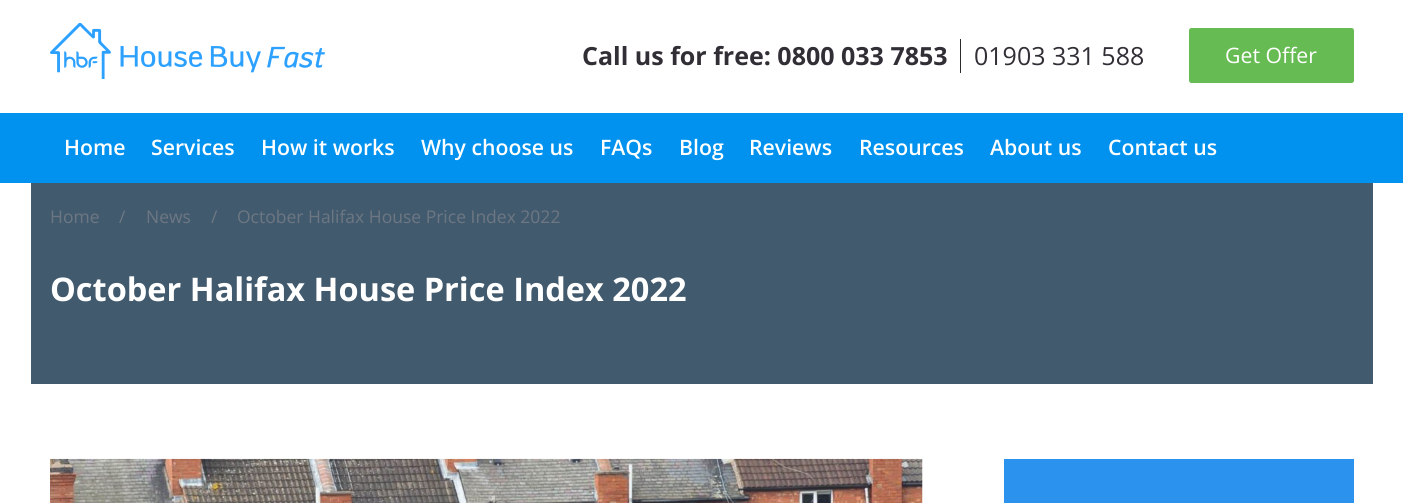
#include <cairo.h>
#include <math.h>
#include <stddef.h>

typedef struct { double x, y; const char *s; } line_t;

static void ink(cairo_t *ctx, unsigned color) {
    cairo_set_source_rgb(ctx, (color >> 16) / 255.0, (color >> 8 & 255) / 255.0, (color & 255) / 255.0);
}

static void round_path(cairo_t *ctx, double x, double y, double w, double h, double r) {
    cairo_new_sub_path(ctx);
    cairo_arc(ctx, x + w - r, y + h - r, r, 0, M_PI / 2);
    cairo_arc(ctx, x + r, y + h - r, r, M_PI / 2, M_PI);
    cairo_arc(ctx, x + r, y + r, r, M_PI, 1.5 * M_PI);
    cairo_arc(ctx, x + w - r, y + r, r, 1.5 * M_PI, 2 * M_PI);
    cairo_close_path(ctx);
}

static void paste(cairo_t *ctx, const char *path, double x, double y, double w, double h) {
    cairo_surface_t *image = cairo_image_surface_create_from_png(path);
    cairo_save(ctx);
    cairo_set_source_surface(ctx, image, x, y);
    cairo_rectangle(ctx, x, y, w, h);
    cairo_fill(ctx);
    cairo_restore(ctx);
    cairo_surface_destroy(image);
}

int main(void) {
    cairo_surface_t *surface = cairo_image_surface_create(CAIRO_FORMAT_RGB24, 1403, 503);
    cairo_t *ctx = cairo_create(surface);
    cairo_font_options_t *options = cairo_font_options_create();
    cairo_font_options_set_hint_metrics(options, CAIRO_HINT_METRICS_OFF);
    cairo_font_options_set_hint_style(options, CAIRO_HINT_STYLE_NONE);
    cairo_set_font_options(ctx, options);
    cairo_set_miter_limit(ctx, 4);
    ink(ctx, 0xFFFFFF);
    cairo_paint(ctx);
    paste(ctx, "media/1.png", 50, 23, 275, 56);
    cairo_select_font_face(ctx, "Open Sans", CAIRO_FONT_SLANT_NORMAL, CAIRO_FONT_WEIGHT_BOLD);
    cairo_set_font_size(ctx, 25);
    ink(ctx, 0x322E36);
    cairo_move_to(ctx, 582, 65);
    cairo_show_text(ctx, "Call us for free: 0800 033 7853");
    ink(ctx, 0x292B2D);
    cairo_rectangle(ctx, 960, 39, 1, 34);
    cairo_fill(ctx);
    cairo_select_font_face(ctx, "Open Sans", CAIRO_FONT_SLANT_NORMAL, CAIRO_FONT_WEIGHT_NORMAL);
    ink(ctx, 0x322E36);
    cairo_move_to(ctx, 974, 65);
    cairo_show_text(ctx, "01903 331 588");
    ink(ctx, 0x66BC52);
    round_path(ctx, 1189, 28, 165, 55, 2.5);
    cairo_fill(ctx);
    cairo_set_font_size(ctx, 21.25);
    ink(ctx, 0xFFFFFF);
    cairo_move_to(ctx, 1225, 63);
    cairo_show_text(ctx, "Get Offer");
    ink(ctx, 0x0092EE);
    cairo_rectangle(ctx, 0, 113, 1403, 70);
    cairo_fill(ctx);
    cairo_select_font_face(ctx, "Open Sans SemiBold", CAIRO_FONT_SLANT_NORMAL, CAIRO_FONT_WEIGHT_NORMAL);
    ink(ctx, 0xFFFFFF);
    {
        static const line_t items[] = {
            {64, 155, "Home"},
            {151, 155, "Services"},
            {261, 155, "How it works"},
            {421, 155, "Why choose us"},
            {600, 155, "FAQs"},
            {679, 155, "Blog"},
            {749, 155, "Reviews"},
            {859, 155, "Resources"},
            {990, 155, "About us"},
            {1108, 155, "Contact us"},
        };
        for (size_t i = 0; i < sizeof items / sizeof *items; i++) {
            cairo_move_to(ctx, items[i].x, items[i].y);
            cairo_show_text(ctx, items[i].s);
        }
    }
    ink(ctx, 0x425A6E);
    cairo_rectangle(ctx, 31, 183, 1342, 201);
    cairo_fill(ctx);
    cairo_select_font_face(ctx, "Open Sans", CAIRO_FONT_SLANT_NORMAL, CAIRO_FONT_WEIGHT_NORMAL);
    cairo_set_font_size(ctx, 17.5);
    ink(ctx, 0x6D7783);
    {
        static const line_t items[] = {
            {50, 223, "Home"},
            {119, 223, "/"},
            {146, 223, "News"},
            {211, 223, "/"},
            {237, 223, "October Halifax House Price Index 2022"},
        };
        for (size_t i = 0; i < sizeof items / sizeof *items; i++) {
            cairo_move_to(ctx, items[i].x, items[i].y);
            cairo_show_text(ctx, items[i].s);
        }
    }
    cairo_select_font_face(ctx, "Open Sans", CAIRO_FONT_SLANT_NORMAL, CAIRO_FONT_WEIGHT_BOLD);
    cairo_set_font_size(ctx, 32.5);
    ink(ctx, 0xFFFFFF);
    cairo_move_to(ctx, 50, 301);
    cairo_show_text(ctx, "October Halifax House Price Index 2022");
    paste(ctx, "media/2.png", 50, 458, 873, 45);
    ink(ctx, 0x2B93ED);
    cairo_rectangle(ctx, 1004, 459, 350, 44);
    cairo_fill(ctx);
    cairo_surface_write_to_png(surface, "image.png");
    cairo_font_options_destroy(options);
    cairo_destroy(ctx);
    cairo_surface_destroy(surface);
    return 0;
}
